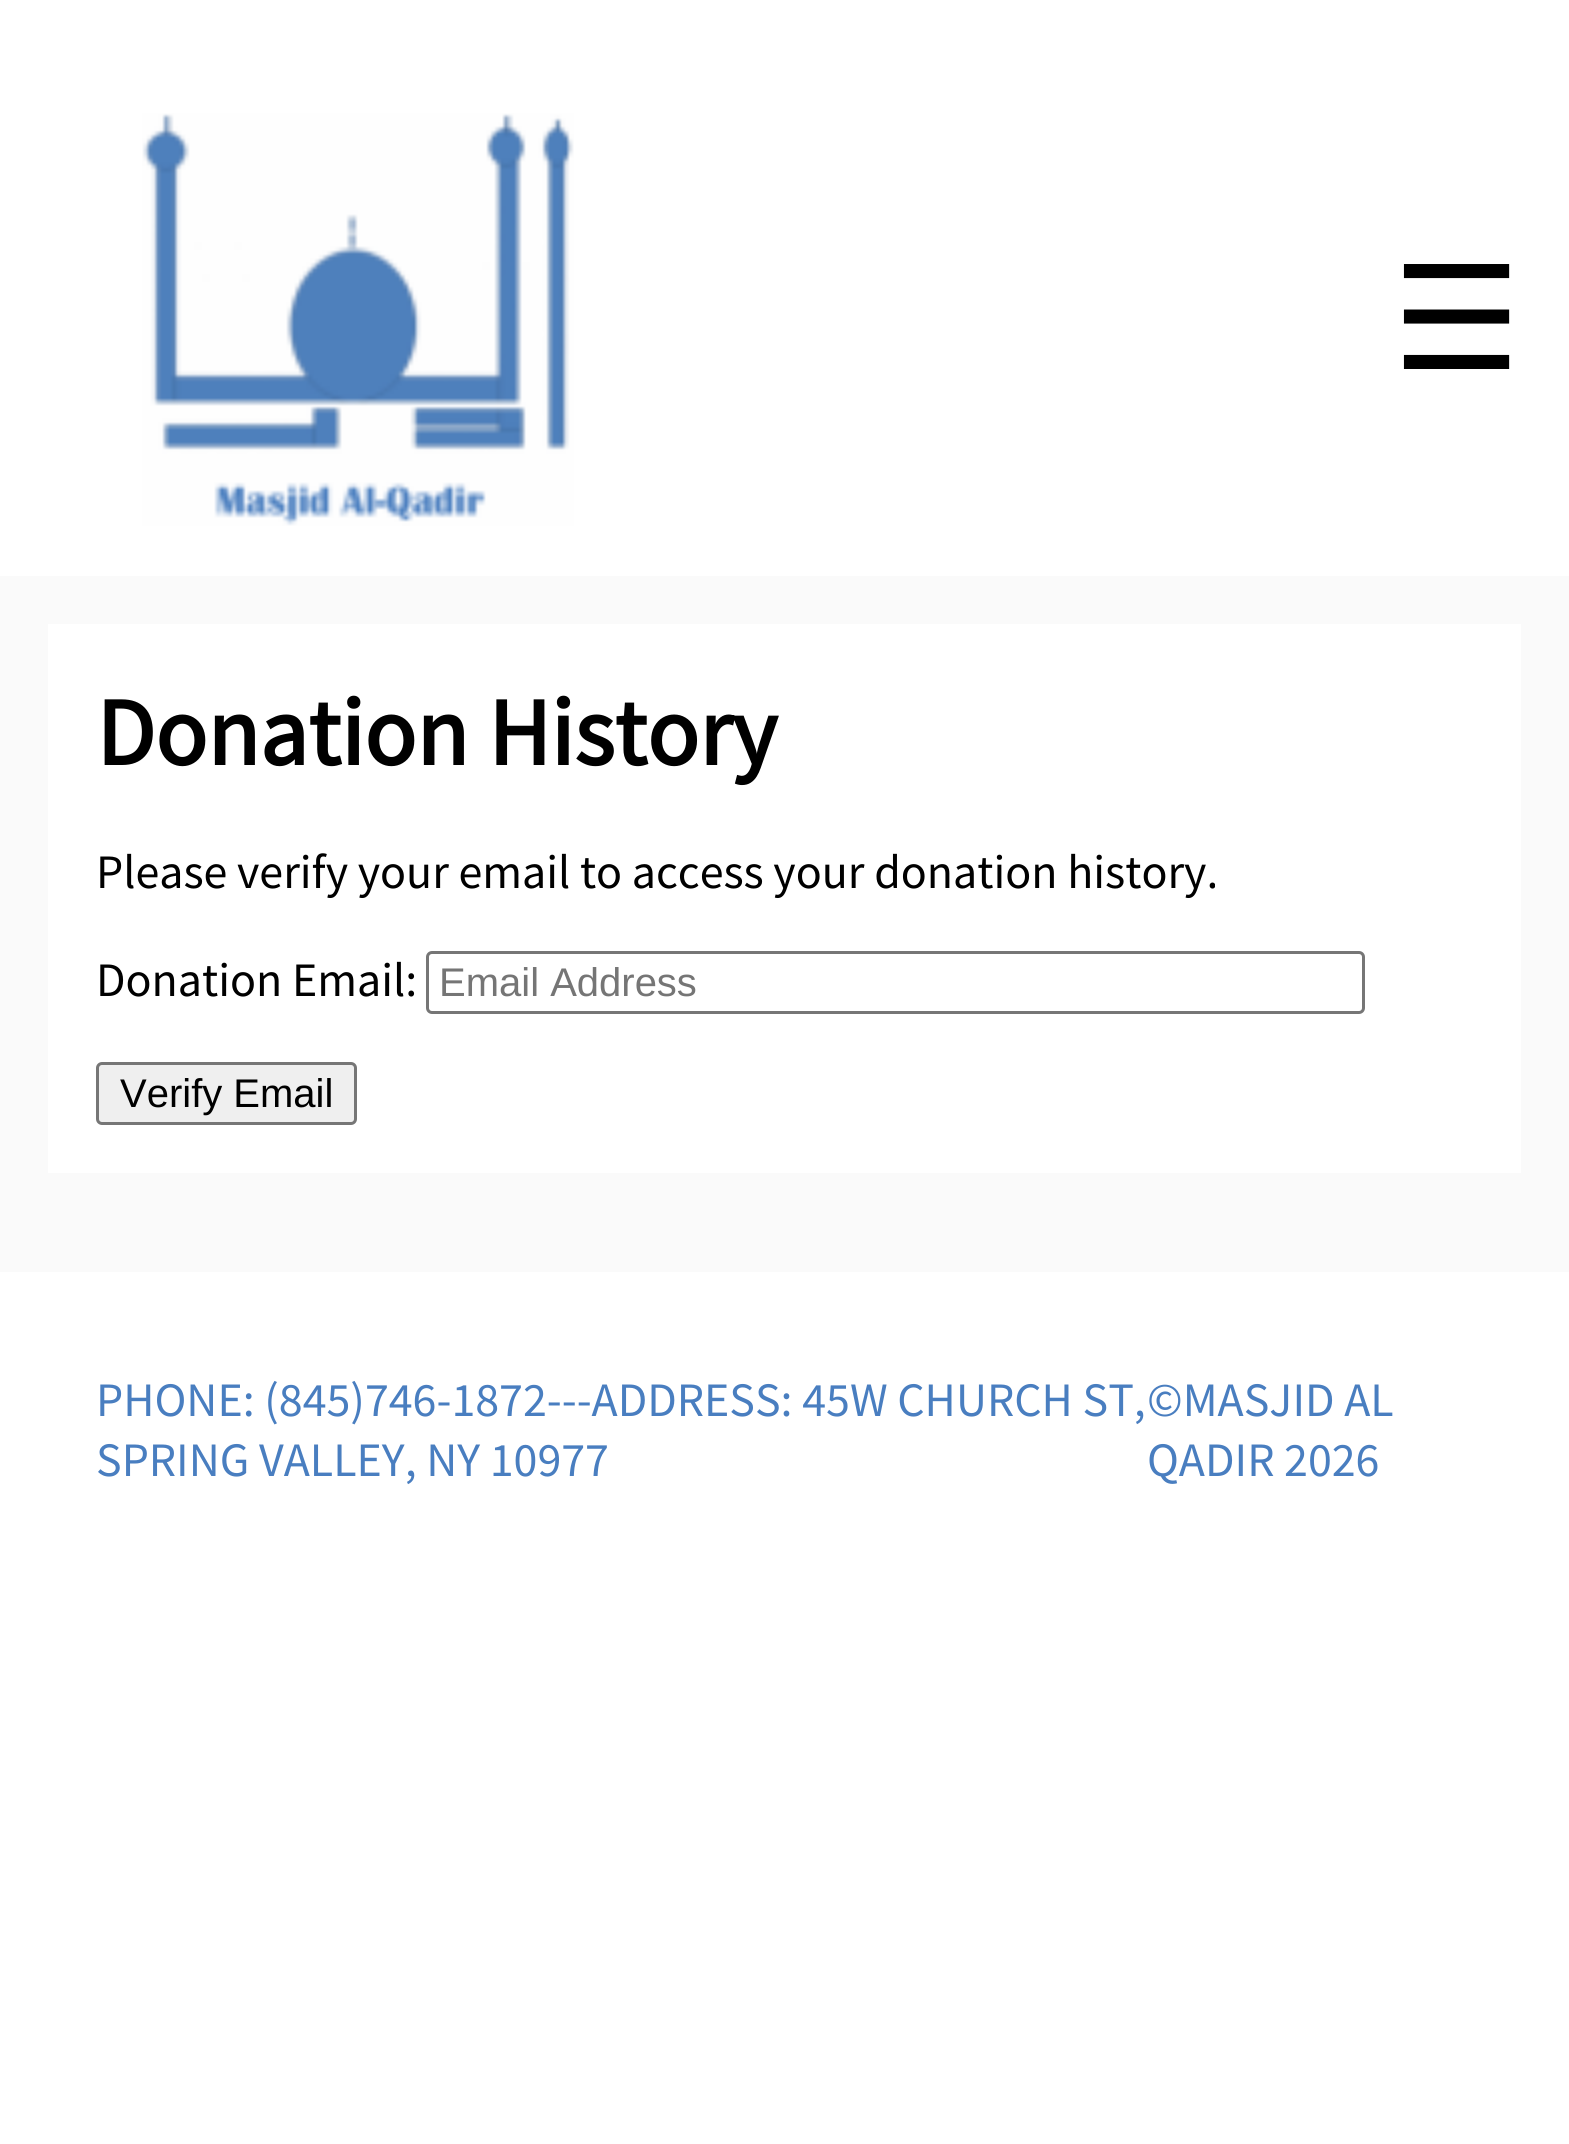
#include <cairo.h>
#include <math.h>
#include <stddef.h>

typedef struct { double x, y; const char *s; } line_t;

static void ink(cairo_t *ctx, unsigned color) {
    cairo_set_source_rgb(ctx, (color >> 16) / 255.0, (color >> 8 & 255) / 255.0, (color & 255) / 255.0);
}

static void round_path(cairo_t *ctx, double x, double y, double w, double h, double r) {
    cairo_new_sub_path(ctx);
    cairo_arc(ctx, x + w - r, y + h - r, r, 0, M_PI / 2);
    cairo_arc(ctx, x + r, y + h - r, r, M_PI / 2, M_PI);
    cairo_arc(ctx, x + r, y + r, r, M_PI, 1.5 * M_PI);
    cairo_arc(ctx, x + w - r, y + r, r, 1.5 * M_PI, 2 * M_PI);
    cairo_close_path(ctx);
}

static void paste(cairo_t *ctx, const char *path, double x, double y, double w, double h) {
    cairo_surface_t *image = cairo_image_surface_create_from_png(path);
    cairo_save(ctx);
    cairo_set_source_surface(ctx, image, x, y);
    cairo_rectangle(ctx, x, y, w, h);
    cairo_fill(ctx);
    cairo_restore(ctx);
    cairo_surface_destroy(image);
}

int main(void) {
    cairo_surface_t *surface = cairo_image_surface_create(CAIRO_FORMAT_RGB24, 1569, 2144);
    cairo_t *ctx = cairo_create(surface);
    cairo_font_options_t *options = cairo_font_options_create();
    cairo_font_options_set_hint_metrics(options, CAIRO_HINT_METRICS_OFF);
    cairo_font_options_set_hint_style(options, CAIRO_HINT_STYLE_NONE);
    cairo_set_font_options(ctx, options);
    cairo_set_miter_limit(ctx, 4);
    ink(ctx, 0xFFFFFF);
    cairo_paint(ctx);
    paste(ctx, "media/1.png", 142, 113, 432, 413);
    cairo_select_font_face(ctx, "DejaVu Sans", CAIRO_FONT_SLANT_NORMAL, CAIRO_FONT_WEIGHT_NORMAL);
    cairo_set_font_size(ctx, 144);
    ink(ctx, 0x000000);
    cairo_move_to(ctx, 1392, 369);
    cairo_show_text(ctx, "☰");
    ink(ctx, 0xFAFAFA);
    cairo_rectangle(ctx, 0, 576, 1569, 696);
    cairo_fill(ctx);
    ink(ctx, 0xFFFFFF);
    cairo_rectangle(ctx, 48, 624, 1473, 549);
    cairo_fill(ctx);
    cairo_select_font_face(ctx, "Source Sans Pro", CAIRO_FONT_SLANT_NORMAL, CAIRO_FONT_WEIGHT_BOLD);
    cairo_set_font_size(ctx, 96);
    ink(ctx, 0x000000);
    cairo_move_to(ctx, 96, 765);
    cairo_show_text(ctx, "Donation History");
    cairo_select_font_face(ctx, "Source Sans Pro", CAIRO_FONT_SLANT_NORMAL, CAIRO_FONT_WEIGHT_NORMAL);
    cairo_set_font_size(ctx, 48);
    cairo_move_to(ctx, 96, 888);
    cairo_show_text(ctx, "Please verify your email to access your donation history.");
    cairo_move_to(ctx, 96, 996);
    cairo_show_text(ctx, "Donation Email:");
    round_path(ctx, 427.5, 952.5, 936, 60, 4.5);
    ink(ctx, 0x767676);
    cairo_set_line_width(ctx, 3);
    cairo_stroke(ctx);
    cairo_select_font_face(ctx, "Liberation Sans", CAIRO_FONT_SLANT_NORMAL, CAIRO_FONT_WEIGHT_NORMAL);
    cairo_set_font_size(ctx, 40);
    ink(ctx, 0x757575);
    cairo_move_to(ctx, 439, 996);
    cairo_show_text(ctx, "Email Address");
    ink(ctx, 0xEFEFEF);
    round_path(ctx, 97.5, 1063.5, 258, 60, 4.5);
    cairo_fill_preserve(ctx);
    ink(ctx, 0x767676);
    cairo_stroke(ctx);
    ink(ctx, 0x000000);
    cairo_move_to(ctx, 120, 1107);
    cairo_show_text(ctx, "Verify Email");
    cairo_select_font_face(ctx, "Source Sans Pro", CAIRO_FONT_SLANT_NORMAL, CAIRO_FONT_WEIGHT_NORMAL);
    cairo_set_font_size(ctx, 48);
    ink(ctx, 0x497EC0);
    {
        static const line_t items[] = {
            {96, 1416, "PHONE: (845)746-1872---ADDRESS: 45W CHURCH ST,"},
            {96, 1476, "SPRING VALLEY, NY 10977"},
            {1147, 1416, "©MASJID AL"},
            {1147, 1476, "QADIR 2026"},
        };
        for (size_t i = 0; i < sizeof items / sizeof *items; i++) {
            cairo_move_to(ctx, items[i].x, items[i].y);
            cairo_show_text(ctx, items[i].s);
        }
    }
    cairo_surface_write_to_png(surface, "image.png");
    cairo_font_options_destroy(options);
    cairo_destroy(ctx);
    cairo_surface_destroy(surface);
    return 0;
}
